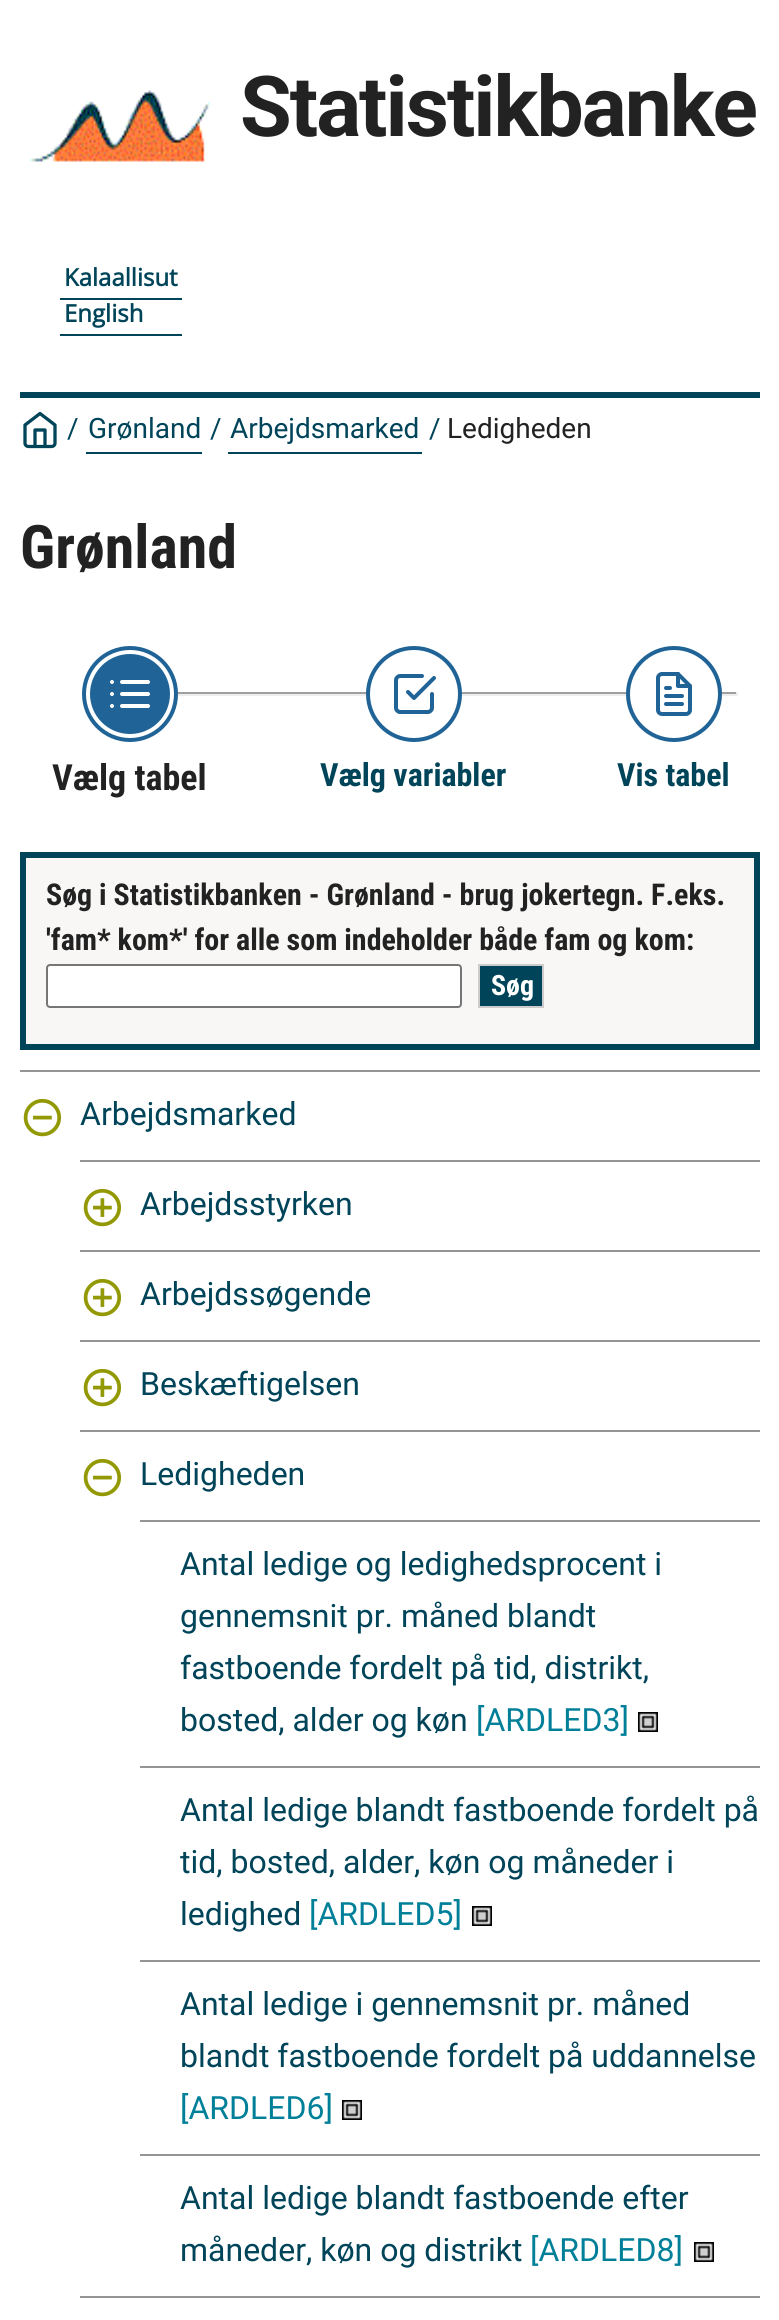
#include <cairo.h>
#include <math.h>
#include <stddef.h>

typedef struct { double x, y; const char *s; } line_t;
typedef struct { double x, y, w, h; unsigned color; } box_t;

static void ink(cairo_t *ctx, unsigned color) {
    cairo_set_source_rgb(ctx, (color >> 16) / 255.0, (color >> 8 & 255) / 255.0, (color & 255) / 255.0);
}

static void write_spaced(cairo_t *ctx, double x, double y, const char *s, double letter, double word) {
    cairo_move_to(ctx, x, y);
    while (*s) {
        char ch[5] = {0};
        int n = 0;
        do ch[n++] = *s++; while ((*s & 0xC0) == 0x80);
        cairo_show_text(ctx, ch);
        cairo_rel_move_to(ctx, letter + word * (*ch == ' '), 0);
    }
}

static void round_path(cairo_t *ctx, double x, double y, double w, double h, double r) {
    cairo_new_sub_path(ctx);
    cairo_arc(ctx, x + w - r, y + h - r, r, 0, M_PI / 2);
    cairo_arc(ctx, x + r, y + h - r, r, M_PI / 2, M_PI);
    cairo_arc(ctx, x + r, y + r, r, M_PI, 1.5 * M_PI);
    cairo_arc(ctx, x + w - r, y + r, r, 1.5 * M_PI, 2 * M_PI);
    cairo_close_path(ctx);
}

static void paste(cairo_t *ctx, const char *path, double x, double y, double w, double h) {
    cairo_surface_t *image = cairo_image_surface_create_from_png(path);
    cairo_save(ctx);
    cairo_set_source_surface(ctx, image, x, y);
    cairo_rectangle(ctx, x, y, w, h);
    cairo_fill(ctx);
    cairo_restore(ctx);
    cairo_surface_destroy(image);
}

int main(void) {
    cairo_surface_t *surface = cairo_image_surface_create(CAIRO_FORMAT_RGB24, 779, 2320);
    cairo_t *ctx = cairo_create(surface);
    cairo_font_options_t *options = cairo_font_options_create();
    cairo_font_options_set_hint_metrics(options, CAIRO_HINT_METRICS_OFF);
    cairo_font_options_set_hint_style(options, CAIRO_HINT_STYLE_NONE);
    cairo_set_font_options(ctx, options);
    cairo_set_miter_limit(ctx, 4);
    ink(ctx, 0xFFFFFF);
    cairo_paint(ctx);
    paste(ctx, "media/1.png", 29, 90, 182, 72);
    cairo_select_font_face(ctx, "Roboto", CAIRO_FONT_SLANT_NORMAL, CAIRO_FONT_WEIGHT_BOLD);
    cairo_set_font_size(ctx, 84);
    ink(ctx, 0x222222);
    write_spaced(ctx, 240, 136, "Statistikbanke", -2, 0);
    ink(ctx, 0x004459);
    cairo_rectangle(ctx, 60, 298, 122, 2);
    cairo_fill(ctx);
    cairo_select_font_face(ctx, "Open Sans", CAIRO_FONT_SLANT_NORMAL, CAIRO_FONT_WEIGHT_BOLD);
    cairo_set_font_size(ctx, 24);
    cairo_move_to(ctx, 64, 286);
    cairo_show_text(ctx, "Kalaallisut");
    cairo_rectangle(ctx, 60, 334, 122, 2);
    cairo_fill(ctx);
    cairo_move_to(ctx, 64, 322);
    cairo_show_text(ctx, "English");
    cairo_rectangle(ctx, 20, 392, 740, 6);
    cairo_fill(ctx);
    cairo_new_path(ctx);
    cairo_move_to(ctx, 25, 425);
    cairo_line_to(ctx, 40, 413.5);
    cairo_line_to(ctx, 55, 425);
    cairo_line_to(ctx, 55, 443.5);
    cairo_curve_to(ctx, 55, 445, 53.5, 446.5, 51.5, 446.5);
    cairo_line_to(ctx, 28.5, 446.5);
    cairo_curve_to(ctx, 26.5, 446.5, 25, 445, 25, 443.5);
    cairo_close_path(ctx);
    cairo_move_to(ctx, 35, 446.5);
    cairo_line_to(ctx, 35, 430);
    cairo_line_to(ctx, 45, 430);
    cairo_line_to(ctx, 45, 446.5);
    cairo_set_line_width(ctx, 3.3);
    cairo_set_line_cap(ctx, CAIRO_LINE_CAP_ROUND);
    cairo_set_line_join(ctx, CAIRO_LINE_JOIN_ROUND);
    cairo_stroke(ctx);
    cairo_select_font_face(ctx, "Roboto", CAIRO_FONT_SLANT_NORMAL, CAIRO_FONT_WEIGHT_NORMAL);
    cairo_set_font_size(ctx, 28);
    cairo_move_to(ctx, 67, 438);
    cairo_show_text(ctx, "/");
    cairo_rectangle(ctx, 86, 452, 116, 2);
    cairo_fill(ctx);
    cairo_move_to(ctx, 88, 438);
    cairo_show_text(ctx, "Grønland");
    cairo_move_to(ctx, 210, 438);
    cairo_show_text(ctx, "/");
    cairo_rectangle(ctx, 228, 452, 194, 2);
    cairo_fill(ctx);
    cairo_move_to(ctx, 230, 438);
    cairo_show_text(ctx, "Arbejdsmarked");
    cairo_move_to(ctx, 429, 438);
    cairo_show_text(ctx, "/");
    ink(ctx, 0x222222);
    cairo_move_to(ctx, 447, 438);
    cairo_show_text(ctx, "Ledigheden");
    cairo_select_font_face(ctx, "Roboto Condensed", CAIRO_FONT_SLANT_NORMAL, CAIRO_FONT_WEIGHT_BOLD);
    cairo_set_font_size(ctx, 60);
    cairo_move_to(ctx, 20, 568);
    cairo_show_text(ctx, "Grønland");
    {
        static const box_t items[] = {
            {177, 692, 190, 2, 0x9F9F9F},
            {177, 694, 190, 2, 0xEEEEEE},
            {461, 692, 277, 2, 0x9F9F9F},
            {736, 692, 2, 4, 0xEEEEEE},
            {461, 694, 277, 2, 0xEEEEEE},
        };
        for (size_t i = 0; i < sizeof items / sizeof *items; i++) {
            ink(ctx, items[i].color);
            cairo_rectangle(ctx, items[i].x, items[i].y, items[i].w, items[i].h);
            cairo_fill(ctx);
        }
    }
    paste(ctx, "media/2.png", 82, 646, 96, 96);
    cairo_set_font_size(ctx, 36);
    ink(ctx, 0x222222);
    cairo_move_to(ctx, 52, 790);
    cairo_show_text(ctx, "Vælg tabel");
    cairo_new_path(ctx);
    cairo_arc(ctx, 414, 694, 46, 0, 2 * M_PI);
    ink(ctx, 0x206396);
    cairo_set_line_width(ctx, 4);
    cairo_set_line_cap(ctx, CAIRO_LINE_CAP_BUTT);
    cairo_set_line_join(ctx, CAIRO_LINE_JOIN_MITER);
    cairo_stroke(ctx);
    cairo_new_path(ctx);
    cairo_move_to(ctx, 408, 692);
    cairo_line_to(ctx, 414, 698);
    cairo_line_to(ctx, 434, 678);
    cairo_move_to(ctx, 432, 694);
    cairo_line_to(ctx, 432, 708);
    cairo_curve_to(ctx, 432, 710, 430, 712, 428, 712);
    cairo_line_to(ctx, 400, 712);
    cairo_curve_to(ctx, 398, 712, 396, 710, 396, 708);
    cairo_line_to(ctx, 396, 680);
    cairo_curve_to(ctx, 396, 678, 398, 676, 400, 676);
    cairo_line_to(ctx, 422, 676);
    cairo_set_line_cap(ctx, CAIRO_LINE_CAP_ROUND);
    cairo_set_line_join(ctx, CAIRO_LINE_JOIN_ROUND);
    cairo_stroke(ctx);
    cairo_set_font_size(ctx, 32);
    ink(ctx, 0x004459);
    cairo_move_to(ctx, 320, 786);
    cairo_show_text(ctx, "Vælg variabler");
    paste(ctx, "media/3.png", 626, 646, 96, 96);
    cairo_move_to(ctx, 617, 786);
    cairo_show_text(ctx, "Vis tabel");
    ink(ctx, 0xF8F7F6);
    cairo_rectangle(ctx, 23, 855, 734, 192);
    cairo_fill_preserve(ctx);
    ink(ctx, 0x004459);
    cairo_set_line_width(ctx, 6);
    cairo_set_line_cap(ctx, CAIRO_LINE_CAP_BUTT);
    cairo_set_line_join(ctx, CAIRO_LINE_JOIN_MITER);
    cairo_stroke(ctx);
    cairo_set_font_size(ctx, 30);
    ink(ctx, 0x222222);
    cairo_move_to(ctx, 46, 905);
    cairo_show_text(ctx, "Søg i Statistikbanken - Grønland - brug jokertegn. F.eks.");
    cairo_move_to(ctx, 46, 950);
    cairo_show_text(ctx, "'fam* kom*' for alle som indeholder både fam og kom:");
    ink(ctx, 0xFFFFFF);
    round_path(ctx, 47, 965, 414, 42, 3);
    cairo_fill_preserve(ctx);
    ink(ctx, 0x767676);
    cairo_set_line_width(ctx, 2);
    cairo_stroke(ctx);
    ink(ctx, 0x004459);
    cairo_rectangle(ctx, 479, 965, 64, 42);
    cairo_fill_preserve(ctx);
    ink(ctx, 0xCCCCCC);
    cairo_stroke(ctx);
    cairo_set_font_size(ctx, 28);
    ink(ctx, 0xFFFFFF);
    cairo_move_to(ctx, 491, 995);
    cairo_show_text(ctx, "Søg");
    ink(ctx, 0x949494);
    cairo_rectangle(ctx, 20, 1070, 740, 2);
    cairo_fill(ctx);
    paste(ctx, "media/4.png", 23, 1099, 39, 38);
    cairo_select_font_face(ctx, "Roboto", CAIRO_FONT_SLANT_NORMAL, CAIRO_FONT_WEIGHT_NORMAL);
    cairo_set_font_size(ctx, 32);
    ink(ctx, 0x004459);
    cairo_move_to(ctx, 80, 1125);
    cairo_show_text(ctx, "Arbejdsmarked");
    ink(ctx, 0x949494);
    cairo_rectangle(ctx, 80, 1160, 680, 2);
    cairo_fill(ctx);
    paste(ctx, "media/5.png", 83, 1189, 39, 38);
    ink(ctx, 0x004459);
    cairo_move_to(ctx, 140, 1215);
    cairo_show_text(ctx, "Arbejdsstyrken");
    ink(ctx, 0x949494);
    cairo_rectangle(ctx, 80, 1250, 680, 2);
    cairo_fill(ctx);
    paste(ctx, "media/5.png", 83, 1279, 39, 38);
    ink(ctx, 0x004459);
    cairo_move_to(ctx, 140, 1305);
    cairo_show_text(ctx, "Arbejdssøgende");
    ink(ctx, 0x949494);
    cairo_rectangle(ctx, 80, 1340, 680, 2);
    cairo_fill(ctx);
    paste(ctx, "media/5.png", 83, 1369, 39, 38);
    ink(ctx, 0x004459);
    cairo_move_to(ctx, 140, 1395);
    cairo_show_text(ctx, "Beskæftigelsen");
    ink(ctx, 0x949494);
    cairo_rectangle(ctx, 80, 1430, 680, 2);
    cairo_fill(ctx);
    paste(ctx, "media/4.png", 83, 1459, 39, 38);
    ink(ctx, 0x004459);
    cairo_move_to(ctx, 140, 1485);
    cairo_show_text(ctx, "Ledigheden");
    ink(ctx, 0x949494);
    cairo_rectangle(ctx, 140, 1520, 620, 2);
    cairo_fill(ctx);
    ink(ctx, 0x004459);
    {
        static const line_t items[] = {
            {180, 1575, "Antal ledige og ledighedsprocent i"},
            {180, 1627, "gennemsnit pr. måned blandt"},
            {180, 1679, "fastboende fordelt på tid, distrikt,"},
            {180, 1731, "bosted, alder og køn"},
        };
        for (size_t i = 0; i < sizeof items / sizeof *items; i++) {
            cairo_move_to(ctx, items[i].x, items[i].y);
            cairo_show_text(ctx, items[i].s);
        }
    }
    ink(ctx, 0x007F99);
    cairo_move_to(ctx, 476, 1731);
    cairo_show_text(ctx, "[ARDLED3]");
    paste(ctx, "media/6.png", 638, 1712, 20, 20);
    ink(ctx, 0x949494);
    cairo_rectangle(ctx, 140, 1766, 620, 2);
    cairo_fill(ctx);
    ink(ctx, 0x004459);
    {
        static const line_t items[] = {
            {180, 1821, "Antal ledige blandt fastboende fordelt på"},
            {180, 1873, "tid, bosted, alder, køn og måneder i"},
            {180, 1925, "ledighed"},
        };
        for (size_t i = 0; i < sizeof items / sizeof *items; i++) {
            cairo_move_to(ctx, items[i].x, items[i].y);
            cairo_show_text(ctx, items[i].s);
        }
    }
    ink(ctx, 0x007F99);
    cairo_move_to(ctx, 309, 1925);
    cairo_show_text(ctx, "[ARDLED5]");
    paste(ctx, "media/6.png", 472, 1906, 20, 20);
    ink(ctx, 0x949494);
    cairo_rectangle(ctx, 140, 1960, 620, 2);
    cairo_fill(ctx);
    ink(ctx, 0x004459);
    cairo_move_to(ctx, 180, 2015);
    cairo_show_text(ctx, "Antal ledige i gennemsnit pr. måned");
    cairo_move_to(ctx, 180, 2067);
    cairo_show_text(ctx, "blandt fastboende fordelt på uddannelse");
    ink(ctx, 0x007F99);
    cairo_move_to(ctx, 180, 2119);
    cairo_show_text(ctx, "[ARDLED6]");
    paste(ctx, "media/6.png", 342, 2100, 20, 20);
    ink(ctx, 0x949494);
    cairo_rectangle(ctx, 140, 2154, 620, 2);
    cairo_fill(ctx);
    ink(ctx, 0x004459);
    cairo_move_to(ctx, 180, 2209);
    cairo_show_text(ctx, "Antal ledige blandt fastboende efter");
    cairo_move_to(ctx, 180, 2261);
    cairo_show_text(ctx, "måneder, køn og distrikt");
    ink(ctx, 0x007F99);
    cairo_move_to(ctx, 530, 2261);
    cairo_show_text(ctx, "[ARDLED8]");
    paste(ctx, "media/6.png", 694, 2242, 20, 20);
    ink(ctx, 0x949494);
    cairo_rectangle(ctx, 80, 2296, 680, 2);
    cairo_fill(ctx);
    cairo_surface_write_to_png(surface, "image.png");
    cairo_font_options_destroy(options);
    cairo_destroy(ctx);
    cairo_surface_destroy(surface);
    return 0;
}
